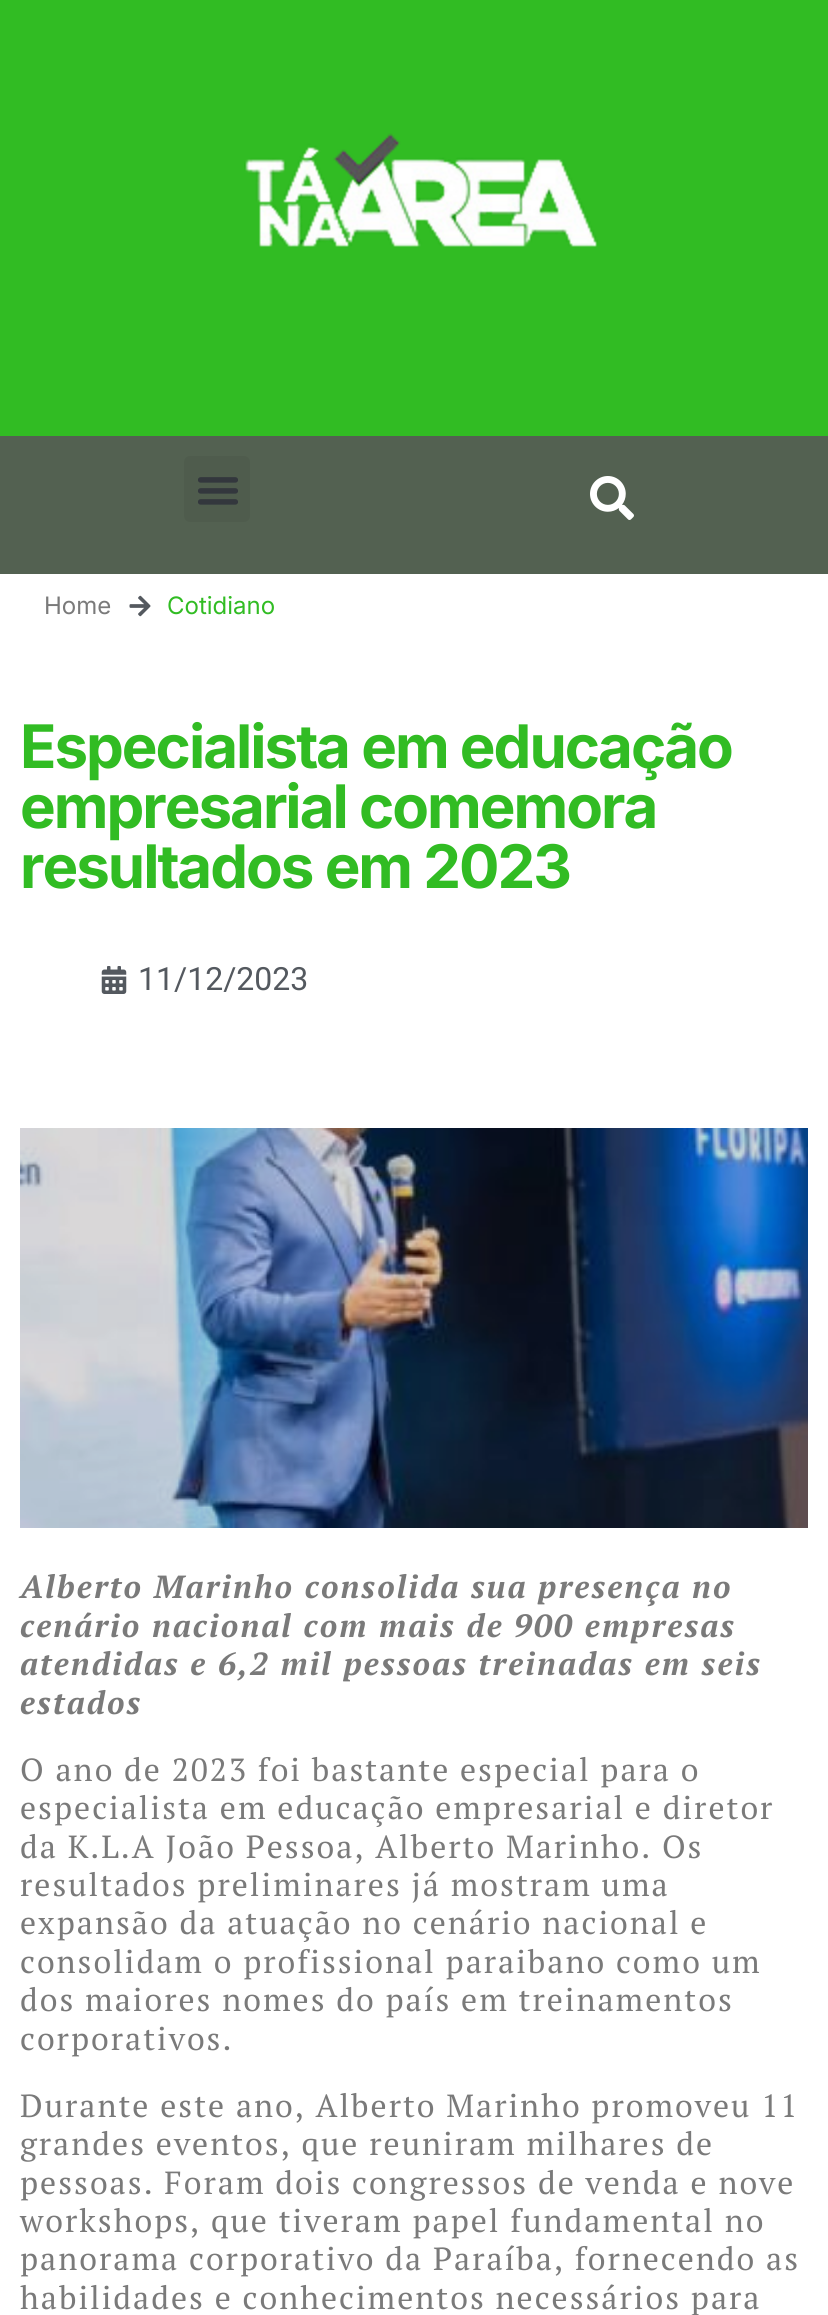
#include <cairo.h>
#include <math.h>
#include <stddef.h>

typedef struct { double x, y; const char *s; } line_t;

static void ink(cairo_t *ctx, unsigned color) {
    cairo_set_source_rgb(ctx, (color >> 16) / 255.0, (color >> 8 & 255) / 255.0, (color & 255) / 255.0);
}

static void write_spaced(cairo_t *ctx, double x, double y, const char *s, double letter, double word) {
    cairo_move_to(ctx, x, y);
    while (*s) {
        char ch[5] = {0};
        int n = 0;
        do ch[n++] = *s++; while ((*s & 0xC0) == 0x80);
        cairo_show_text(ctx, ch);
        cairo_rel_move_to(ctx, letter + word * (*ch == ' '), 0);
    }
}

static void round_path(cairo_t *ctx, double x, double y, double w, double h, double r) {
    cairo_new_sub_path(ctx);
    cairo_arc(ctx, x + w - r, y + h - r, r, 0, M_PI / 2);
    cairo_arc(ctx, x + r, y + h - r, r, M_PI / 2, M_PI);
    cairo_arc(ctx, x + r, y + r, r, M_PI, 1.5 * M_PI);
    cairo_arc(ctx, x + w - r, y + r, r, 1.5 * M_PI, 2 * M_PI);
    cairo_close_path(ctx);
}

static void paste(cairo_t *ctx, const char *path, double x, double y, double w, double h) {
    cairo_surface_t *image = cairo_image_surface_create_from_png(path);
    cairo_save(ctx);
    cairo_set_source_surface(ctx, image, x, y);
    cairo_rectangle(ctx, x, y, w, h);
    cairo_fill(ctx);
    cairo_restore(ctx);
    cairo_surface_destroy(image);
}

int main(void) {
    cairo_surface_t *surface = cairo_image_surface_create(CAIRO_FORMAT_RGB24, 828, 2315);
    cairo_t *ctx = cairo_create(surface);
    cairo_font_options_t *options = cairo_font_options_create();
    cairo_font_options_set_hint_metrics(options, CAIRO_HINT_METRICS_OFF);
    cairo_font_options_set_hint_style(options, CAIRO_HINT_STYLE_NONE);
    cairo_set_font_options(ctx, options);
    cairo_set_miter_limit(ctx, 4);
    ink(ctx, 0xFFFFFF);
    cairo_paint(ctx);
    ink(ctx, 0x31BC23);
    cairo_rectangle(ctx, 0, 0, 828, 436);
    cairo_fill(ctx);
    paste(ctx, "media/1.png", 244, 133, 354, 114);
    ink(ctx, 0x536151);
    cairo_rectangle(ctx, 0, 436, 828, 138);
    cairo_fill(ctx);
    ink(ctx, 0x4F5C4D);
    round_path(ctx, 184, 456, 66, 66, 6);
    cairo_fill(ctx);
    paste(ctx, "media/2.png", 198, 477, 40, 28);
    paste(ctx, "media/3.png", 590, 476, 44, 44);
    cairo_select_font_face(ctx, "Inter", CAIRO_FONT_SLANT_NORMAL, CAIRO_FONT_WEIGHT_NORMAL);
    cairo_set_font_size(ctx, 24);
    ink(ctx, 0x7A7A7A);
    cairo_move_to(ctx, 44, 614);
    cairo_show_text(ctx, "Home");
    paste(ctx, "media/4.png", 129, 595, 22, 22);
    ink(ctx, 0x31BC23);
    cairo_move_to(ctx, 167, 614);
    cairo_show_text(ctx, "Cotidiano");
    cairo_select_font_face(ctx, "Inter", CAIRO_FONT_SLANT_NORMAL, CAIRO_FONT_WEIGHT_BOLD);
    cairo_set_font_size(ctx, 60);
    {
        static const line_t items[] = {
            {20, 768, "Especialista em educação"},
            {20, 828, "empresarial comemora"},
            {20, 888, "resultados em 2023"},
        };
        for (size_t i = 0; i < sizeof items / sizeof *items; i++) {
            write_spaced(ctx, items[i].x, items[i].y, items[i].s, -2, 0);
        }
    }
    paste(ctx, "media/5.png", 101, 966, 26, 28);
    cairo_select_font_face(ctx, "Roboto", CAIRO_FONT_SLANT_NORMAL, CAIRO_FONT_WEIGHT_NORMAL);
    cairo_set_font_size(ctx, 32);
    ink(ctx, 0x54595F);
    cairo_move_to(ctx, 138, 990);
    cairo_show_text(ctx, "11/12/2023");
    paste(ctx, "media/6.png", 20, 1128, 788, 400);
    cairo_select_font_face(ctx, "PT Serif", CAIRO_FONT_SLANT_ITALIC, CAIRO_FONT_WEIGHT_BOLD);
    ink(ctx, 0x7A7A7A);
    {
        static const line_t items[] = {
            {20, 1598, "Alberto Marinho consolida sua presença no"},
            {20, 1637, "cenário nacional com mais de 900 empresas"},
            {20, 1675, "atendidas e 6,2 mil pessoas treinadas em seis"},
            {20, 1714, "estados"},
        };
        for (size_t i = 0; i < sizeof items / sizeof *items; i++) {
            write_spaced(ctx, items[i].x, items[i].y, items[i].s, 2, 0);
        }
    }
    cairo_select_font_face(ctx, "PT Serif", CAIRO_FONT_SLANT_NORMAL, CAIRO_FONT_WEIGHT_NORMAL);
    {
        static const line_t items[] = {
            {20, 1781, "O ano de 2023 foi bastante especial para o"},
            {20, 1819, "especialista em educação empresarial e diretor"},
            {20, 1858, "da K.L.A João Pessoa, Alberto Marinho. Os"},
            {20, 1896, "resultados preliminares já mostram uma"},
            {20, 1934, "expansão da atuação no cenário nacional e"},
            {20, 1973, "consolidam o profissional paraibano como um"},
            {20, 2011, "dos maiores nomes do país em treinamentos"},
            {20, 2050, "corporativos."},
            {20, 2117, "Durante este ano, Alberto Marinho promoveu 11"},
            {20, 2155, "grandes eventos, que reuniram milhares de"},
            {20, 2194, "pessoas. Foram dois congressos de venda e nove"},
            {20, 2232, "workshops, que tiveram papel fundamental no"},
            {20, 2270, "panorama corporativo da Paraíba, fornecendo as"},
            {20, 2309, "habilidades e conhecimentos necessários para"},
        };
        for (size_t i = 0; i < sizeof items / sizeof *items; i++) {
            write_spaced(ctx, items[i].x, items[i].y, items[i].s, 2, 0);
        }
    }
    cairo_surface_write_to_png(surface, "image.png");
    cairo_font_options_destroy(options);
    cairo_destroy(ctx);
    cairo_surface_destroy(surface);
    return 0;
}
